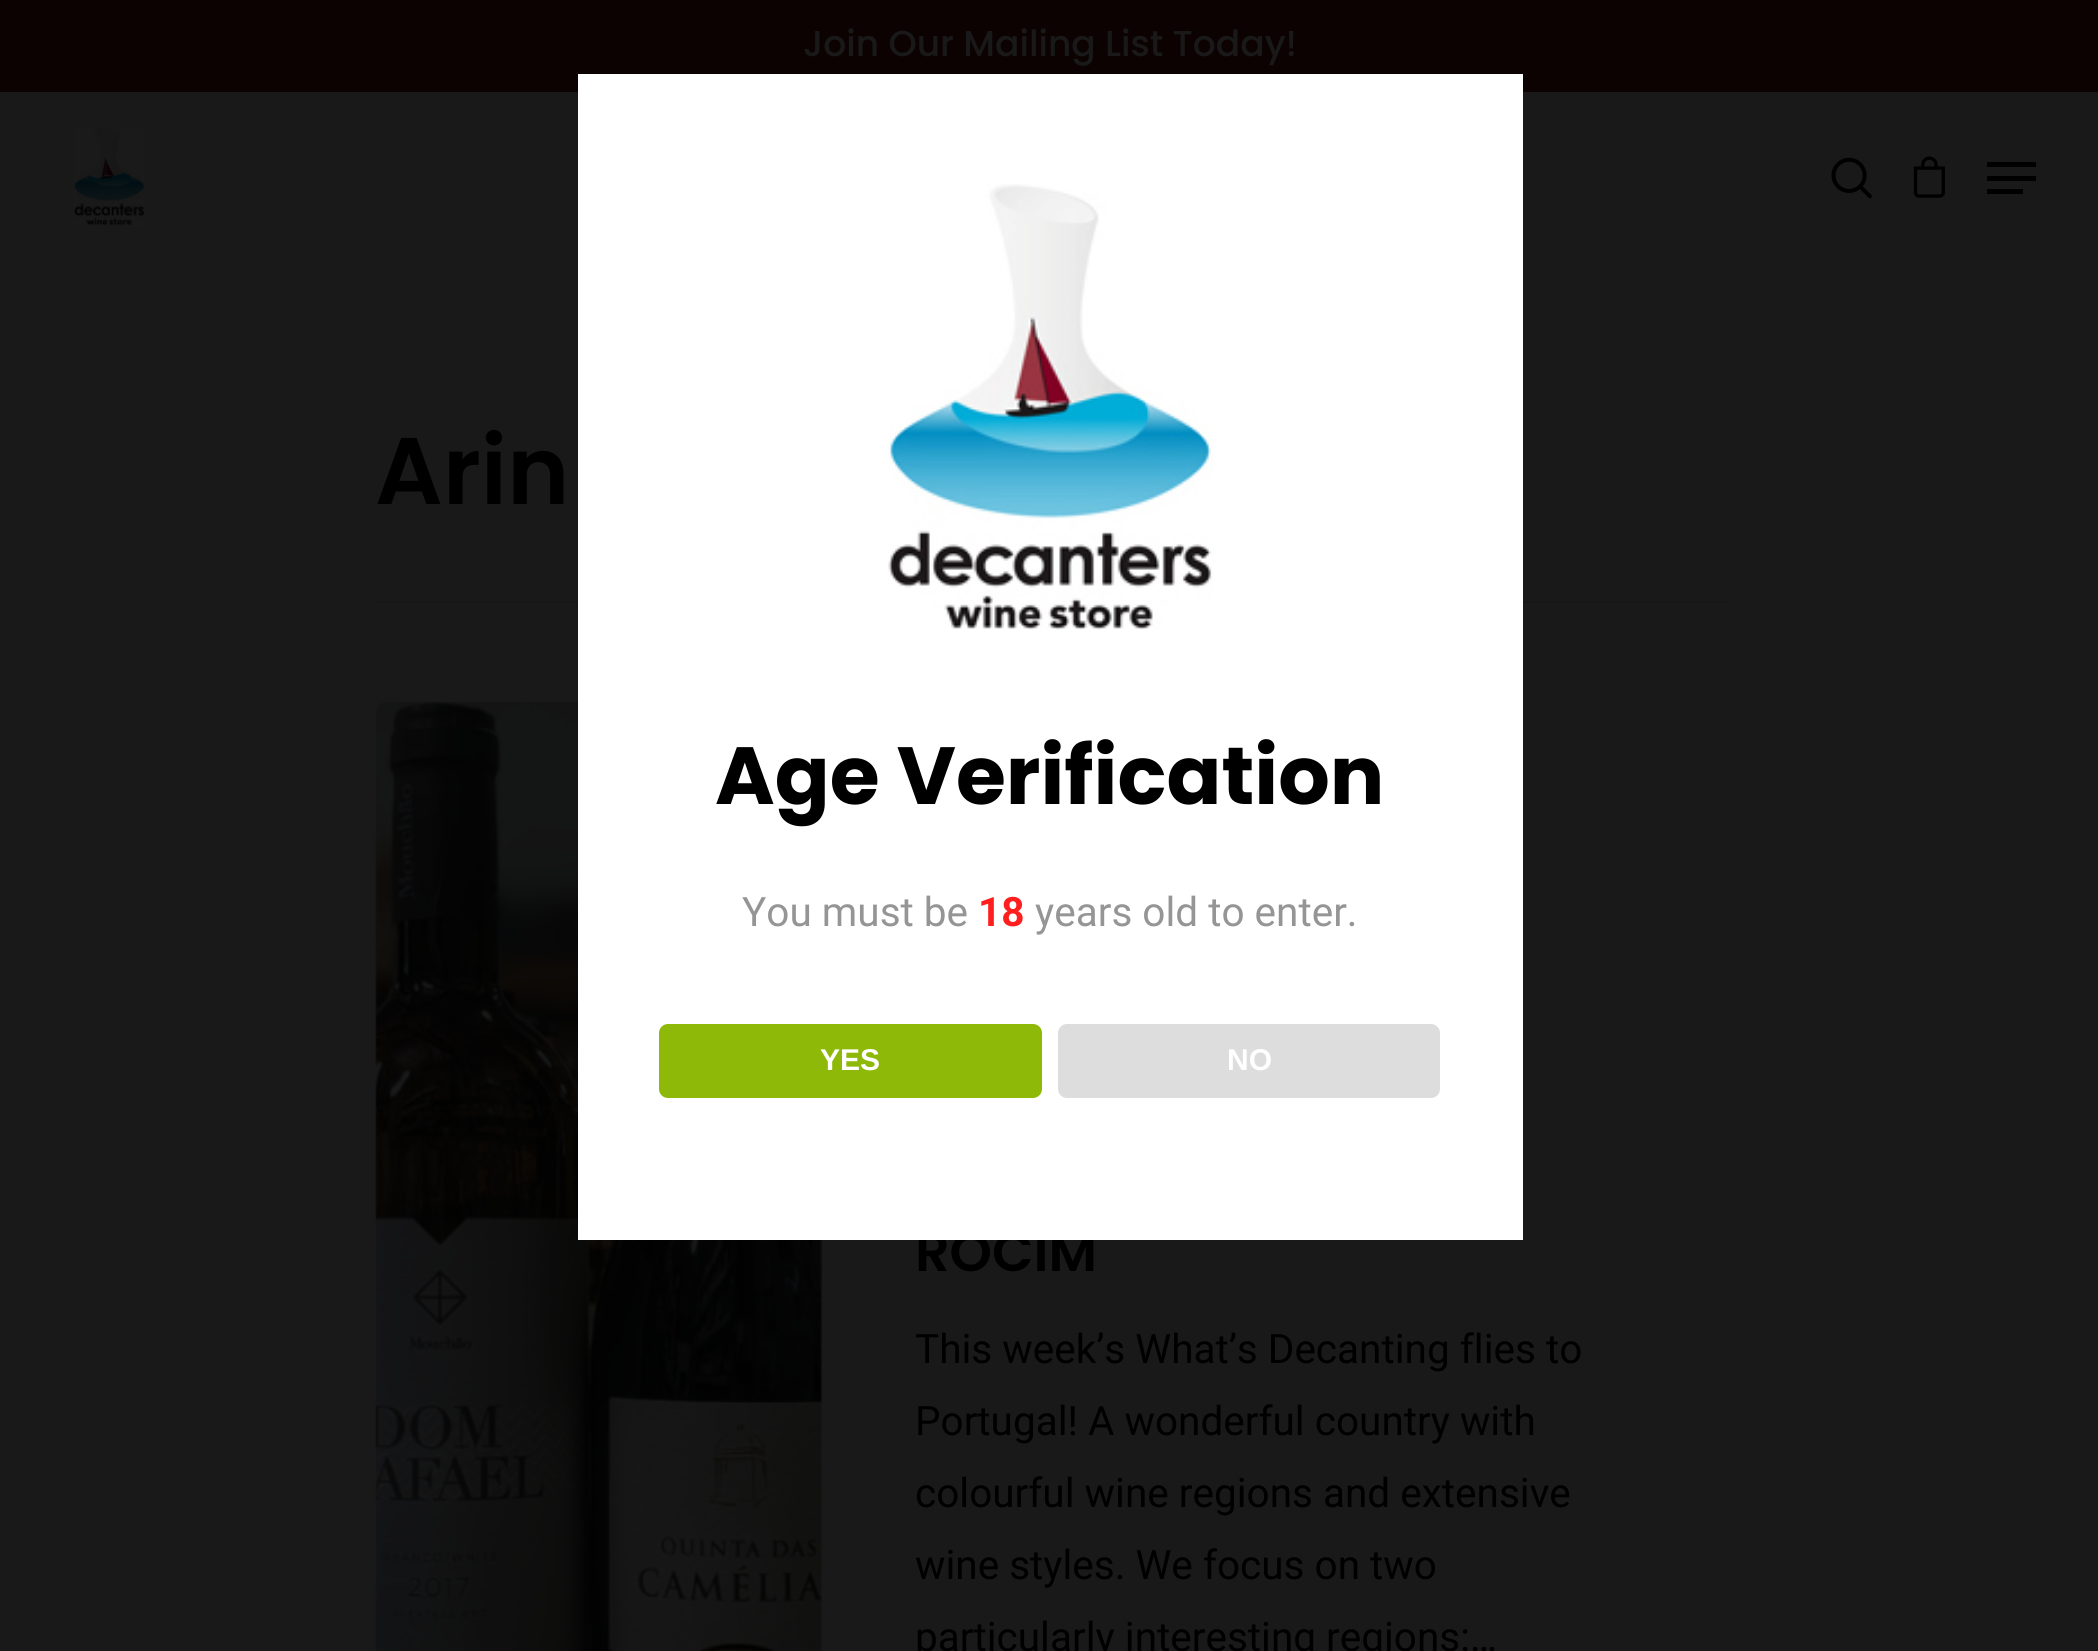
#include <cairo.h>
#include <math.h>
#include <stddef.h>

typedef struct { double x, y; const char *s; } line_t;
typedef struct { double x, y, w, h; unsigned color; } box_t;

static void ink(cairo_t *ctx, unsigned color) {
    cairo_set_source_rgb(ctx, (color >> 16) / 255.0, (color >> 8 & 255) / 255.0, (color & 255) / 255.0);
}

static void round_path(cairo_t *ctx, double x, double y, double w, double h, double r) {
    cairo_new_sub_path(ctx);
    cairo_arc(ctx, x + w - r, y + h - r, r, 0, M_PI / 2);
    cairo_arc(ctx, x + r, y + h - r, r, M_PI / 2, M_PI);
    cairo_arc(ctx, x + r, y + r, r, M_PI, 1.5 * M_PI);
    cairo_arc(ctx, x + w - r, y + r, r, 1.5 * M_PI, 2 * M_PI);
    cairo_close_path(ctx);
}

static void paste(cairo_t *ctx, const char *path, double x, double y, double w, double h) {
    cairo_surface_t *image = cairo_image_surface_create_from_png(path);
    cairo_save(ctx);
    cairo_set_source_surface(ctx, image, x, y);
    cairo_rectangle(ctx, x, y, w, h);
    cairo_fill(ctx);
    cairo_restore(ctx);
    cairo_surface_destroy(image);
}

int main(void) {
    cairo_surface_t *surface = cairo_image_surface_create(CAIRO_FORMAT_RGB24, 2098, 1651);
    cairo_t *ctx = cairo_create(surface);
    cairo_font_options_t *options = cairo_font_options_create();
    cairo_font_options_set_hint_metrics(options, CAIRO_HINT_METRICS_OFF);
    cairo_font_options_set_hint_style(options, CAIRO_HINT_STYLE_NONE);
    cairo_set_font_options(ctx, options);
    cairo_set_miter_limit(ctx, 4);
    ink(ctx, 0x191919);
    cairo_paint(ctx);
    ink(ctx, 0x0C0202);
    cairo_rectangle(ctx, 0, 0, 2098, 92);
    cairo_fill(ctx);
    cairo_select_font_face(ctx, "Poppins Medium", CAIRO_FONT_SLANT_NORMAL, CAIRO_FONT_WEIGHT_NORMAL);
    cairo_set_font_size(ctx, 36);
    ink(ctx, 0x191919);
    cairo_move_to(ctx, 803, 56);
    cairo_show_text(ctx, "Join Our Mailing List Today!");
    paste(ctx, "media/1.png", 74, 128, 71, 98);
    paste(ctx, "media/2.png", 1831, 157, 41, 42);
    paste(ctx, "media/3.png", 1913, 156, 32, 42);
    {
        static const box_t items[] = {
            {1987, 162, 49, 5, 0x000000},
            {1987, 189, 36, 5, 0x000000},
            {1987, 176, 49, 5, 0x000000},
            {376, 601, 1350, 2, 0x161616},
        };
        for (size_t i = 0; i < sizeof items / sizeof *items; i++) {
            ink(ctx, items[i].color);
            cairo_rectangle(ctx, items[i].x, items[i].y, items[i].w, items[i].h);
            cairo_fill(ctx);
        }
    }
    cairo_select_font_face(ctx, "Poppins SemiBold", CAIRO_FONT_SLANT_NORMAL, CAIRO_FONT_WEIGHT_NORMAL);
    cairo_set_font_size(ctx, 94.5);
    ink(ctx, 0x000000);
    cairo_move_to(ctx, 375, 504);
    cairo_show_text(ctx, "Arin");
    paste(ctx, "media/4.png", 375, 701, 447, 950);
    cairo_set_font_size(ctx, 54);
    cairo_move_to(ctx, 915, 1271);
    cairo_show_text(ctx, "ROCIM");
    cairo_select_font_face(ctx, "Roboto", CAIRO_FONT_SLANT_NORMAL, CAIRO_FONT_WEIGHT_NORMAL);
    cairo_set_font_size(ctx, 40.5);
    {
        static const line_t items[] = {
            {915, 1363, "This week’s What’s Decanting flies to"},
            {915, 1435, "Portugal! A wonderful country with"},
            {915, 1507, "colourful wine regions and extensive"},
            {915, 1579, "wine styles. We focus on two"},
            {915, 1651, "particularly interesting regions:…"},
        };
        for (size_t i = 0; i < sizeof items / sizeof *items; i++) {
            cairo_move_to(ctx, items[i].x, items[i].y);
            cairo_show_text(ctx, items[i].s);
        }
    }
    ink(ctx, 0xFFFFFF);
    cairo_rectangle(ctx, 578, 74, 945, 1166);
    cairo_fill(ctx);
    paste(ctx, "media/5.png", 888, 184, 326, 446);
    cairo_select_font_face(ctx, "Poppins", CAIRO_FONT_SLANT_NORMAL, CAIRO_FONT_WEIGHT_BOLD);
    cairo_set_font_size(ctx, 81);
    ink(ctx, 0x000000);
    cairo_move_to(ctx, 715, 804);
    cairo_show_text(ctx, "Age Verification");
    cairo_select_font_face(ctx, "Roboto", CAIRO_FONT_SLANT_NORMAL, CAIRO_FONT_WEIGHT_NORMAL);
    cairo_set_font_size(ctx, 40.5);
    ink(ctx, 0x959595);
    cairo_move_to(ctx, 742, 926);
    cairo_show_text(ctx, "You must be");
    cairo_select_font_face(ctx, "Roboto", CAIRO_FONT_SLANT_NORMAL, CAIRO_FONT_WEIGHT_BOLD);
    ink(ctx, 0xFF1F1F);
    cairo_move_to(ctx, 978, 926);
    cairo_show_text(ctx, "18");
    cairo_select_font_face(ctx, "Roboto", CAIRO_FONT_SLANT_NORMAL, CAIRO_FONT_WEIGHT_NORMAL);
    ink(ctx, 0x959595);
    cairo_move_to(ctx, 1035, 926);
    cairo_show_text(ctx, "years old to enter.");
    ink(ctx, 0x8EB908);
    round_path(ctx, 659, 1024, 383, 74, 9);
    cairo_fill(ctx);
    cairo_select_font_face(ctx, "Liberation Sans", CAIRO_FONT_SLANT_NORMAL, CAIRO_FONT_WEIGHT_BOLD);
    cairo_set_font_size(ctx, 30);
    ink(ctx, 0xFFFFFF);
    cairo_move_to(ctx, 820, 1070);
    cairo_show_text(ctx, "YES");
    ink(ctx, 0xDDDDDD);
    round_path(ctx, 1058, 1024, 382, 74, 9);
    cairo_fill(ctx);
    ink(ctx, 0xFFFFFF);
    cairo_move_to(ctx, 1227, 1070);
    cairo_show_text(ctx, "NO");
    cairo_surface_write_to_png(surface, "image.png");
    cairo_font_options_destroy(options);
    cairo_destroy(ctx);
    cairo_surface_destroy(surface);
    return 0;
}
